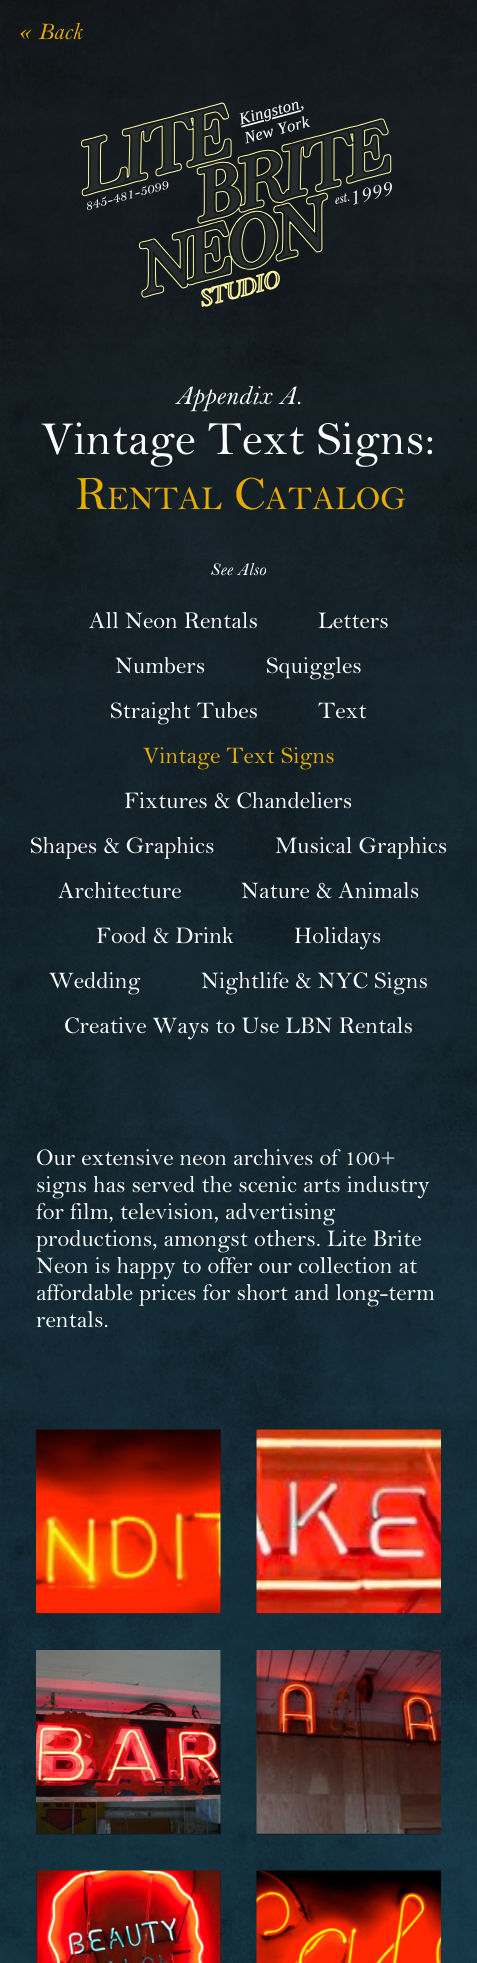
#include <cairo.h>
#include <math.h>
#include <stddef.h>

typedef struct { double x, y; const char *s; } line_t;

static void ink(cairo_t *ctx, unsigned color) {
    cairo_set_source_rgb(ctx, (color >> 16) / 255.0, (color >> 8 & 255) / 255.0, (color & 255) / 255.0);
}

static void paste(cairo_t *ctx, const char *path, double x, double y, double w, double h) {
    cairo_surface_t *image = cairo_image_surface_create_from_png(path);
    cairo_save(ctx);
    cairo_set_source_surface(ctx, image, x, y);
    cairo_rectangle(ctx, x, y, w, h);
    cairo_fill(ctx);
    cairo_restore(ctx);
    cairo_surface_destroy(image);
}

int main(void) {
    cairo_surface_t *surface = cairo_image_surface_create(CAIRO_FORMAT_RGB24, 477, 1963);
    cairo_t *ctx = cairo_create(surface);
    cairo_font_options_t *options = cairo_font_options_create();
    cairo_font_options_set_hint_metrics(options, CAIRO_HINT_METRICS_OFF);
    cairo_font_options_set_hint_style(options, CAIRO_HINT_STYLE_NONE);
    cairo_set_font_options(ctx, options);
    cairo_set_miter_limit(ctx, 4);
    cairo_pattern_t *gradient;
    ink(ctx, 0xFFFFFF);
    cairo_paint(ctx);
    gradient = cairo_pattern_create_linear(238, 0, 239, 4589);
    cairo_pattern_add_color_stop_rgba(gradient, 0, 0.157, 0.188, 0.212, 1);
    cairo_pattern_add_color_stop_rgba(gradient, 1, 0.149, 0.659, 0.875, 1);
    cairo_set_source(ctx, gradient);
    cairo_pattern_destroy(gradient);
    cairo_rectangle(ctx, 0, 0, 477, 1963);
    cairo_fill(ctx);
    paste(ctx, "media/1.png", 0, 0, 477, 1963);
    cairo_select_font_face(ctx, "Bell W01", CAIRO_FONT_SLANT_ITALIC, CAIRO_FONT_WEIGHT_NORMAL);
    cairo_set_font_size(ctx, 24);
    ink(ctx, 0xE5AB01);
    cairo_move_to(ctx, 18, 39);
    cairo_show_text(ctx, "«");
    cairo_move_to(ctx, 38, 39);
    cairo_show_text(ctx, "Back");
    paste(ctx, "media/2.png", 81, 101, 311, 206);
    cairo_set_font_size(ctx, 27);
    ink(ctx, 0xFFFFFF);
    cairo_move_to(ctx, 175, 404);
    cairo_show_text(ctx, "Appendix A.");
    cairo_select_font_face(ctx, "Bell W01", CAIRO_FONT_SLANT_NORMAL, CAIRO_FONT_WEIGHT_NORMAL);
    cairo_set_font_size(ctx, 48);
    cairo_move_to(ctx, 41, 454);
    cairo_show_text(ctx, "Vintage Text Signs:");
    ink(ctx, 0xE5AB01);
    cairo_move_to(ctx, 75, 509);
    cairo_show_text(ctx, "R");
    cairo_set_font_size(ctx, 33.5);
    cairo_move_to(ctx, 107, 509);
    cairo_show_text(ctx, "ENTAL");
    cairo_set_font_size(ctx, 48);
    cairo_move_to(ctx, 234, 509);
    cairo_show_text(ctx, "C");
    cairo_set_font_size(ctx, 33.5);
    cairo_move_to(ctx, 265, 509);
    cairo_show_text(ctx, "ATALOG");
    cairo_select_font_face(ctx, "Bell W01", CAIRO_FONT_SLANT_ITALIC, CAIRO_FONT_WEIGHT_NORMAL);
    cairo_set_font_size(ctx, 18);
    ink(ctx, 0xFFFFFF);
    cairo_move_to(ctx, 210, 575);
    cairo_show_text(ctx, "See Also");
    cairo_select_font_face(ctx, "Bell W01", CAIRO_FONT_SLANT_NORMAL, CAIRO_FONT_WEIGHT_NORMAL);
    cairo_set_font_size(ctx, 24);
    {
        static const line_t items[] = {
            {89, 628, "All Neon Rentals"},
            {318, 628, "Letters"},
            {115, 673, "Numbers"},
            {266, 673, "Squiggles"},
            {110, 718, "Straight Tubes"},
            {318, 718, "Text"},
        };
        for (size_t i = 0; i < sizeof items / sizeof *items; i++) {
            cairo_move_to(ctx, items[i].x, items[i].y);
            cairo_show_text(ctx, items[i].s);
        }
    }
    ink(ctx, 0xE5AB01);
    cairo_move_to(ctx, 143, 763);
    cairo_show_text(ctx, "Vintage Text Signs");
    ink(ctx, 0xFFFFFF);
    {
        static const line_t items[] = {
            {124, 808, "Fixtures & Chandeliers"},
            {30, 853, "Shapes & Graphics"},
            {275, 853, "Musical Graphics"},
            {58, 898, "Architecture"},
            {241, 898, "Nature & Animals"},
            {96, 943, "Food & Drink"},
            {294, 943, "Holidays"},
            {49, 988, "Wedding"},
            {201, 988, "Nightlife & NYC Signs"},
            {64, 1033, "Creative Ways to Use LBN Rentals"},
            {36, 1165, "Our extensive neon archives of 100+"},
            {36, 1192, "signs has served the scenic arts industry"},
            {36, 1219, "for film, television, advertising"},
            {36, 1246, "productions, amongst others. Lite Brite"},
            {36, 1273, "Neon is happy to offer our collection at"},
            {36, 1300, "affordable prices for short and long-term"},
            {36, 1327, "rentals."},
        };
        for (size_t i = 0; i < sizeof items / sizeof *items; i++) {
            cairo_move_to(ctx, items[i].x, items[i].y);
            cairo_show_text(ctx, items[i].s);
        }
    }
    cairo_set_source_rgba(ctx, 0, 0, 0, 0.25);
    cairo_rectangle(ctx, 36, 1430, 185, 184);
    cairo_fill(ctx);
    paste(ctx, "media/3.png", 36, 1429, 185, 185);
    cairo_rectangle(ctx, 257, 1613, 184, 1);
    cairo_fill(ctx);
    paste(ctx, "media/4.png", 256, 1429, 185, 185);
    cairo_rectangle(ctx, 36, 1650, 185, 185);
    cairo_fill(ctx);
    paste(ctx, "media/5.png", 36, 1650, 185, 184);
    cairo_rectangle(ctx, 257, 1833, 184, 2);
    cairo_fill(ctx);
    paste(ctx, "media/6.png", 256, 1650, 185, 184);
    cairo_rectangle(ctx, 36, 1871, 185, 92);
    cairo_fill(ctx);
    paste(ctx, "media/7.png", 36, 1870, 185, 93);
    paste(ctx, "media/8.png", 256, 1870, 185, 93);
    cairo_surface_write_to_png(surface, "image.png");
    cairo_font_options_destroy(options);
    cairo_destroy(ctx);
    cairo_surface_destroy(surface);
    return 0;
}
